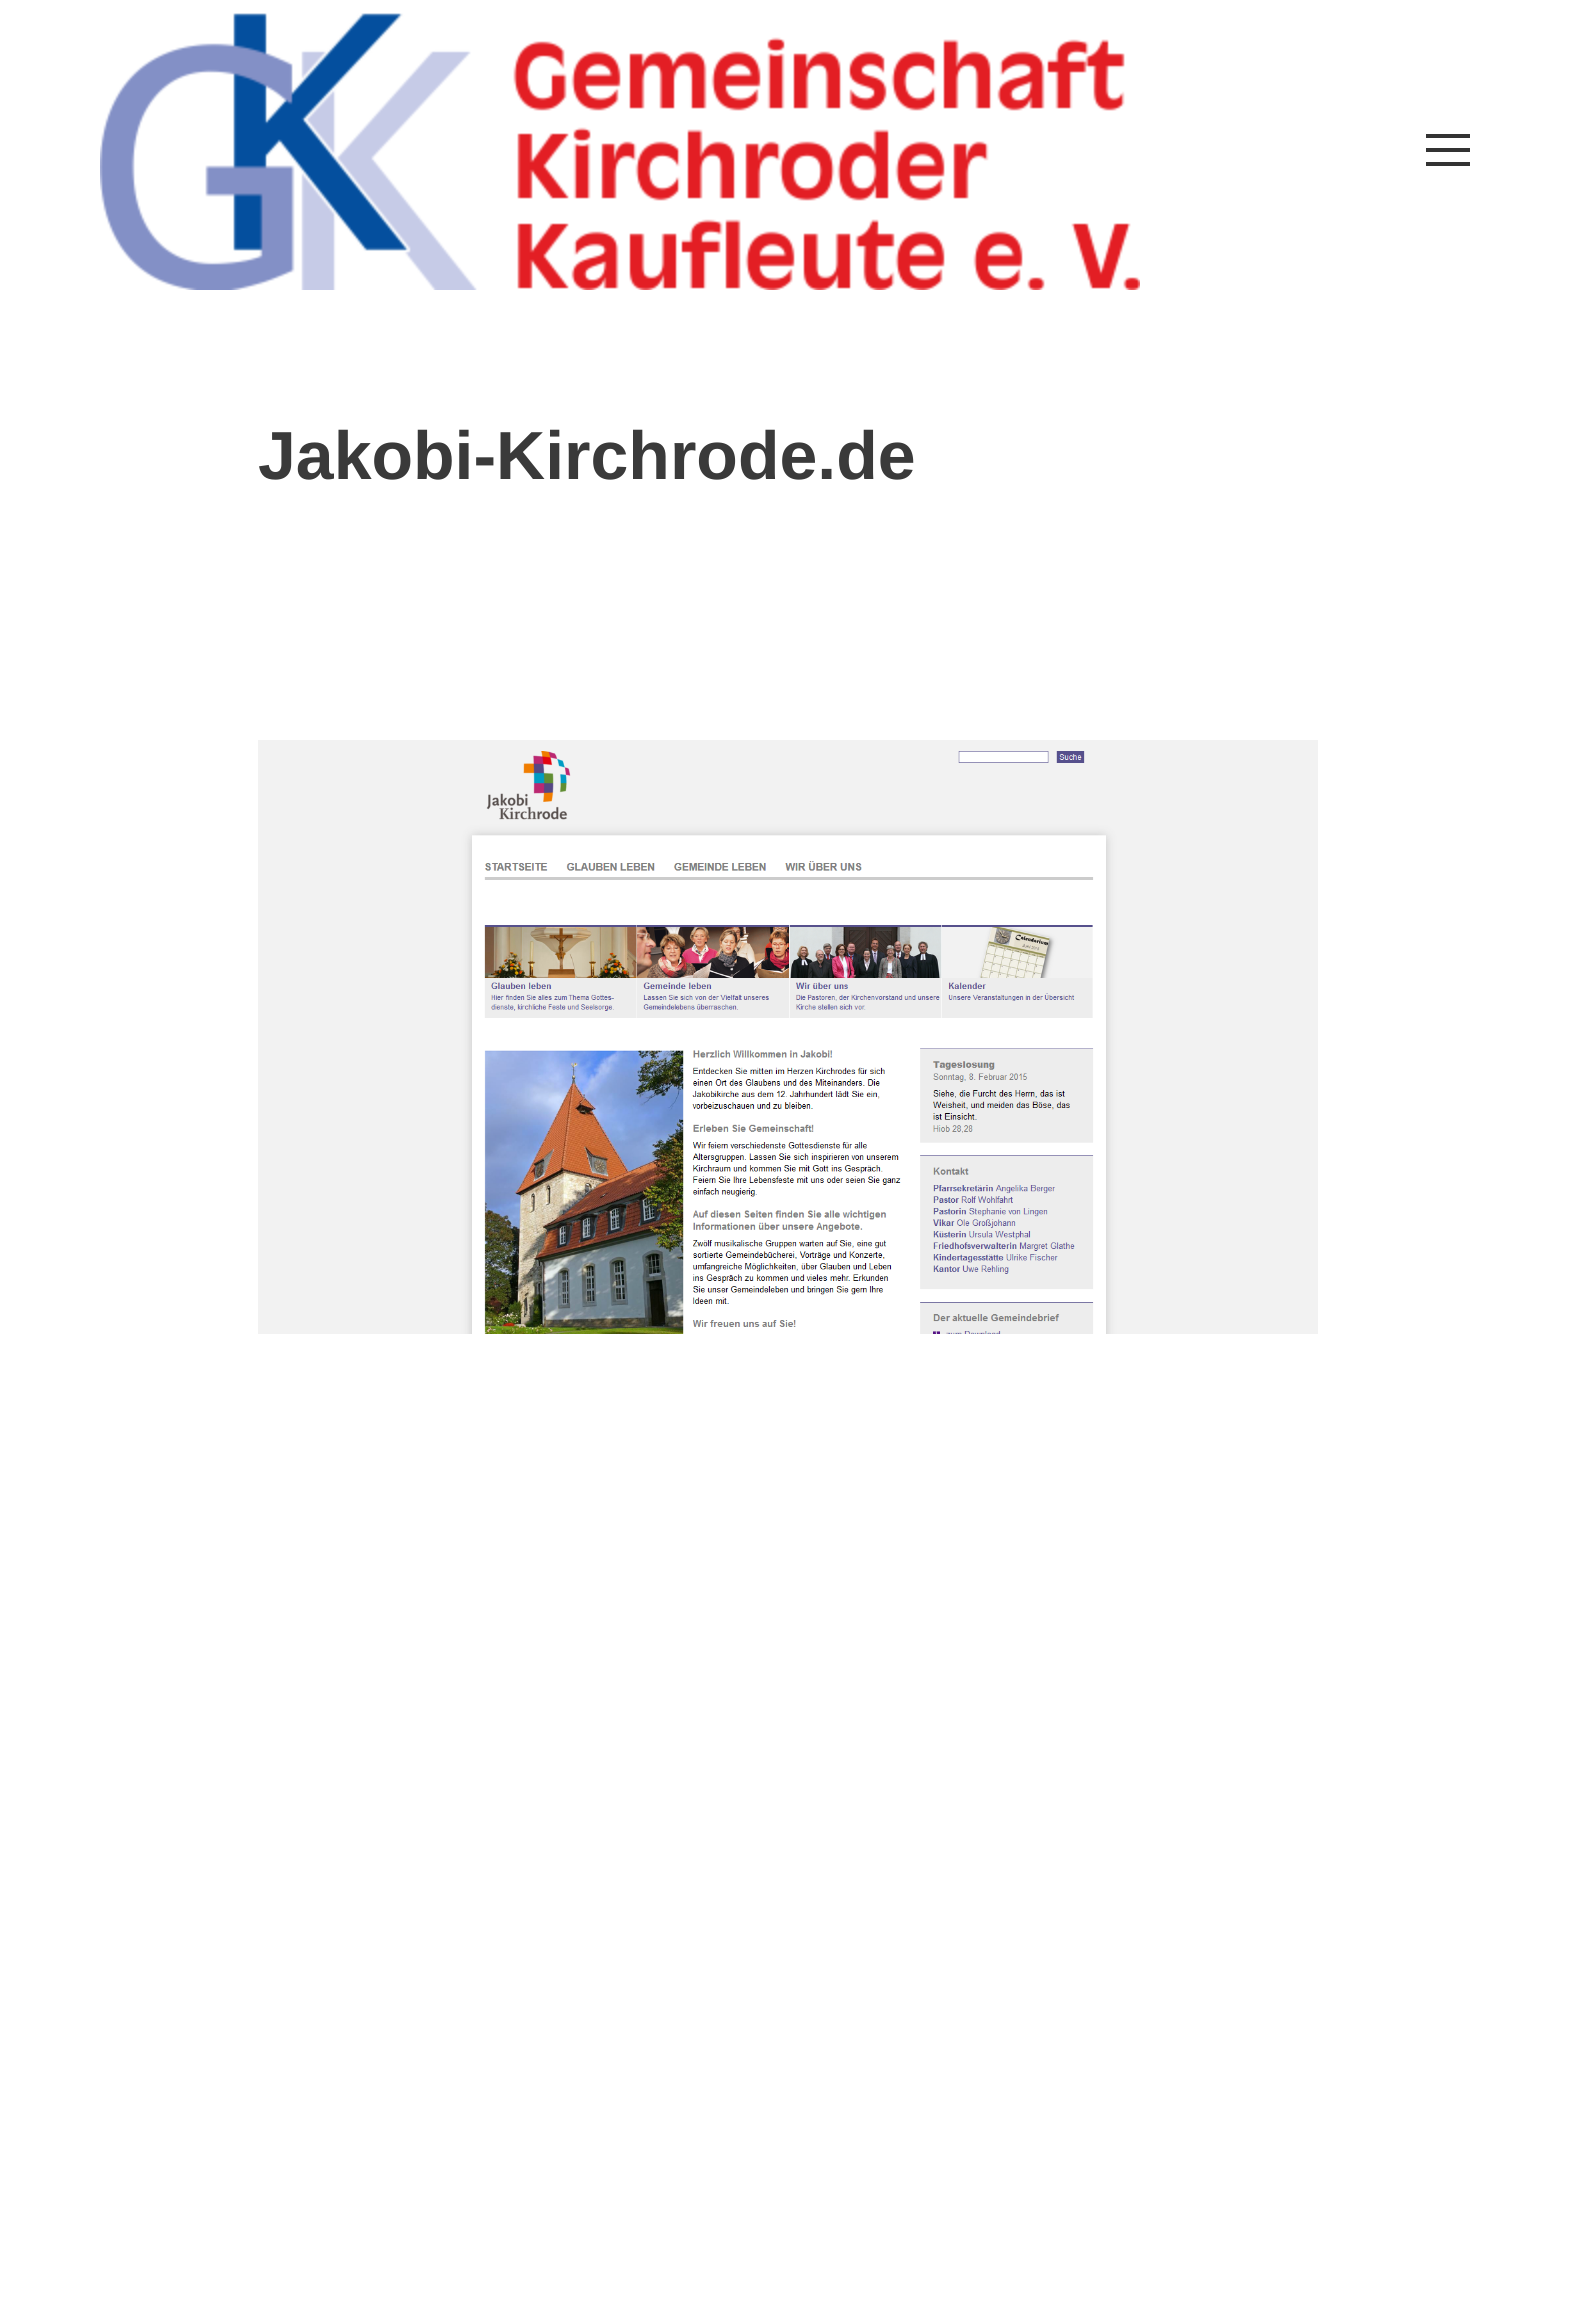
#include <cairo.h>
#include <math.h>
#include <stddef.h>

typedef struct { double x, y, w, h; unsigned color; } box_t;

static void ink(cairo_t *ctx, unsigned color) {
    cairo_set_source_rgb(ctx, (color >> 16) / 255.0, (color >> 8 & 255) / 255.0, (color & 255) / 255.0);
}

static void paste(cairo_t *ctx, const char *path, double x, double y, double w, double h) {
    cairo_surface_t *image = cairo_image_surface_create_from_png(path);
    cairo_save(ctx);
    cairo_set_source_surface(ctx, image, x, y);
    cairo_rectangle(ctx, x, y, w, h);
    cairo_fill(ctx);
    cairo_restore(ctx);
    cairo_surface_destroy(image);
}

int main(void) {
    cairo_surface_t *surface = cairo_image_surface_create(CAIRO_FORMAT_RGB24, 1576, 2308);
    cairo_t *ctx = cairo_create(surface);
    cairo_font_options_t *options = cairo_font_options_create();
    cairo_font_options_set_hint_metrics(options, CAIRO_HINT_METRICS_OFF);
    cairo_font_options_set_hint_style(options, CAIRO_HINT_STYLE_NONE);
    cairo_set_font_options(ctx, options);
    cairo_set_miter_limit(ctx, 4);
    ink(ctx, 0xFFFFFF);
    cairo_paint(ctx);
    paste(ctx, "media/1.png", 100, 13, 1040, 277);
    {
        static const box_t items[] = {
            {1426, 134, 44, 4, 0x333333},
            {1426, 148, 44, 4, 0x333333},
            {1426, 162, 44, 4, 0x333333},
        };
        for (size_t i = 0; i < sizeof items / sizeof *items; i++) {
            ink(ctx, items[i].color);
            cairo_rectangle(ctx, items[i].x, items[i].y, items[i].w, items[i].h);
            cairo_fill(ctx);
        }
    }
    cairo_select_font_face(ctx, "Liberation Sans", CAIRO_FONT_SLANT_NORMAL, CAIRO_FONT_WEIGHT_BOLD);
    cairo_set_font_size(ctx, 68);
    ink(ctx, 0x3A3A3A);
    cairo_move_to(ctx, 258, 479);
    cairo_show_text(ctx, "Jakobi-Kirchrode.de");
    paste(ctx, "media/2.png", 258, 740, 1060, 594);
    cairo_surface_write_to_png(surface, "image.png");
    cairo_font_options_destroy(options);
    cairo_destroy(ctx);
    cairo_surface_destroy(surface);
    return 0;
}
